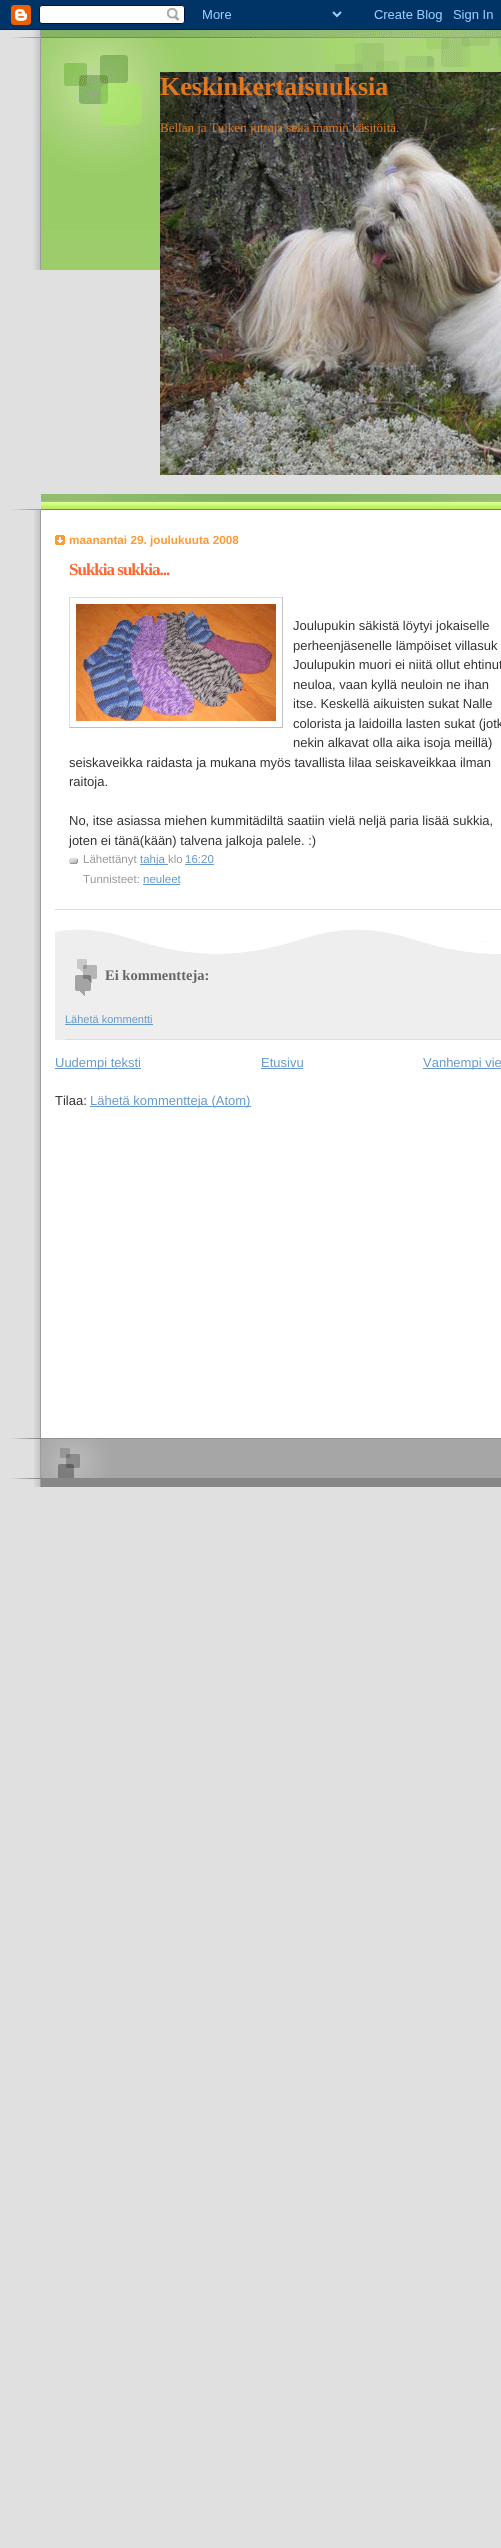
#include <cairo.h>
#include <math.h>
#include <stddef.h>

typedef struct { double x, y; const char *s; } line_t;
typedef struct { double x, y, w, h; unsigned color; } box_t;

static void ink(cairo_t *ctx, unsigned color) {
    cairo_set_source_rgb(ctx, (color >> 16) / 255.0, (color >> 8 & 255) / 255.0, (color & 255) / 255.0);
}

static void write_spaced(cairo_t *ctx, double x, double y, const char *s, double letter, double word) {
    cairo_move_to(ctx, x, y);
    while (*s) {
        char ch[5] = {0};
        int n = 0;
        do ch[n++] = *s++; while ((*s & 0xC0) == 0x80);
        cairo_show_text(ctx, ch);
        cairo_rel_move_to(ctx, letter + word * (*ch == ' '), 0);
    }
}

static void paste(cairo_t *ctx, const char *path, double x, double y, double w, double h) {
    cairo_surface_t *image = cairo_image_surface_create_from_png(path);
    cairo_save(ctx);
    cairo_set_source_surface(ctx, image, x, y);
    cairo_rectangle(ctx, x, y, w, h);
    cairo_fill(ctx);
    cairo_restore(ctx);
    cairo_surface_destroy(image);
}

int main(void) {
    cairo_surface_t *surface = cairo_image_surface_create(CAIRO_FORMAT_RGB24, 501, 2548);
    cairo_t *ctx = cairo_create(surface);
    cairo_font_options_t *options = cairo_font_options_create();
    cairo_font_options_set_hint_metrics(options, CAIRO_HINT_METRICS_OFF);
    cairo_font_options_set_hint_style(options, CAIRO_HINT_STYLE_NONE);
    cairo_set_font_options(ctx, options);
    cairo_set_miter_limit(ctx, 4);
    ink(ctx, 0xE0E0E0);
    cairo_paint(ctx);
    paste(ctx, "media/1.png", 0, 0, 501, 30);
    paste(ctx, "media/2.png", 34, 510, 467, 977);
    paste(ctx, "media/3.png", 11, 30, 490, 240);
    paste(ctx, "media/4.png", 11, 494, 490, 16);
    paste(ctx, "media/5.png", 160, 72, 341, 403);
    cairo_select_font_face(ctx, "Liberation Serif", CAIRO_FONT_SLANT_NORMAL, CAIRO_FONT_WEIGHT_BOLD);
    cairo_set_font_size(ctx, 26);
    ink(ctx, 0xE1771E);
    cairo_move_to(ctx, 160, 95);
    cairo_show_text(ctx, "Keskinkertaisuuksia");
    cairo_select_font_face(ctx, "Liberation Serif", CAIRO_FONT_SLANT_NORMAL, CAIRO_FONT_WEIGHT_NORMAL);
    cairo_set_font_size(ctx, 13);
    cairo_move_to(ctx, 160, 132);
    cairo_show_text(ctx, "Bellan ja Tuiken juttuja sekä mamin käsitöitä.");
    paste(ctx, "media/6.png", 55, 535, 10, 10);
    cairo_select_font_face(ctx, "Liberation Sans", CAIRO_FONT_SLANT_NORMAL, CAIRO_FONT_WEIGHT_BOLD);
    cairo_set_font_size(ctx, 11.75);
    ink(ctx, 0xFF9933);
    cairo_move_to(ctx, 69, 544);
    cairo_show_text(ctx, "maanantai 29. joulukuuta 2008");
    ink(ctx, 0xDDDDDD);
    cairo_rectangle(ctx, 55, 909, 446, 1);
    cairo_fill(ctx);
    cairo_select_font_face(ctx, "Liberation Serif", CAIRO_FONT_SLANT_NORMAL, CAIRO_FONT_WEIGHT_BOLD);
    cairo_set_font_size(ctx, 17);
    ink(ctx, 0xFF6633);
    write_spaced(ctx, 69, 575, "Sukkia sukkia...", -1, 0);
    {
        static const box_t items[] = {
            {69, 597, 214, 1, 0xDDDDDD},
            {282, 597, 1, 131, 0xC0C0C0},
            {69, 727, 214, 1, 0xC0C0C0},
            {69, 597, 1, 131, 0xDDDDDD},
        };
        for (size_t i = 0; i < sizeof items / sizeof *items; i++) {
            ink(ctx, items[i].color);
            cairo_rectangle(ctx, items[i].x, items[i].y, items[i].w, items[i].h);
            cairo_fill(ctx);
        }
    }
    paste(ctx, "media/7.png", 76, 604, 200, 117);
    cairo_select_font_face(ctx, "Liberation Sans", CAIRO_FONT_SLANT_NORMAL, CAIRO_FONT_WEIGHT_NORMAL);
    cairo_set_font_size(ctx, 13);
    ink(ctx, 0x333333);
    {
        static const line_t items[] = {
            {293, 630, "Joulupukin säkistä löytyi jokaiselle"},
            {293, 650, "perheenjäsenelle lämpöiset villasuk"},
            {293, 669, "Joulupukin muori ei niitä ollut ehtinut"},
            {293, 689, "neuloa, vaan kyllä neuloin ne ihan"},
            {293, 708, "itse. Keskellä aikuisten sukat Nalle"},
            {293, 728, "colorista ja laidoilla lasten sukat (jotk"},
            {293, 747, "nekin alkavat olla aika isoja meillä)"},
            {69, 767, "seiskaveikka raidasta ja mukana myös tavallista lilaa seiskaveikkaa ilman"},
            {69, 786, "raitoja."},
            {69, 825, "No, itse asiassa miehen kummitädiltä saatiin vielä neljä paria lisää sukkia,"},
            {69, 845, "joten ei tänä(kään) talvena jalkoja palele. :)"},
        };
        for (size_t i = 0; i < sizeof items / sizeof *items; i++) {
            cairo_move_to(ctx, items[i].x, items[i].y);
            cairo_show_text(ctx, items[i].s);
        }
    }
    paste(ctx, "media/8.png", 69, 858, 9, 6);
    cairo_set_font_size(ctx, 11.5);
    ink(ctx, 0x999999);
    cairo_move_to(ctx, 83, 863);
    cairo_show_text(ctx, "Lähettänyt");
    ink(ctx, 0x6699CC);
    cairo_rectangle(ctx, 140, 864, 24, 1);
    cairo_fill(ctx);
    cairo_move_to(ctx, 140, 863);
    cairo_show_text(ctx, "tahja");
    cairo_rectangle(ctx, 164, 864, 4, 1);
    cairo_fill(ctx);
    ink(ctx, 0x999999);
    cairo_move_to(ctx, 168, 863);
    cairo_show_text(ctx, "klo");
    ink(ctx, 0x6699CC);
    cairo_move_to(ctx, 185, 863);
    cairo_show_text(ctx, "16:20");
    cairo_rectangle(ctx, 185, 864, 29, 1);
    cairo_fill(ctx);
    ink(ctx, 0x999999);
    cairo_move_to(ctx, 83, 883);
    cairo_show_text(ctx, "Tunnisteet:");
    ink(ctx, 0x6699CC);
    cairo_move_to(ctx, 143, 883);
    cairo_show_text(ctx, "neuleet");
    cairo_rectangle(ctx, 143, 884, 37, 1);
    cairo_fill(ctx);
    ink(ctx, 0xEEEEEE);
    cairo_rectangle(ctx, 55, 930, 446, 110);
    cairo_fill(ctx);
    paste(ctx, "media/9.png", 55, 929, 446, 25);
    paste(ctx, "media/10.png", 75, 959, 22, 37);
    cairo_select_font_face(ctx, "Liberation Serif", CAIRO_FONT_SLANT_NORMAL, CAIRO_FONT_WEIGHT_BOLD);
    cairo_set_font_size(ctx, 14.5);
    ink(ctx, 0x666666);
    cairo_move_to(ctx, 105, 980);
    cairo_show_text(ctx, "Ei kommentteja:");
    ink(ctx, 0xDDDDDD);
    cairo_rectangle(ctx, 65, 1039, 436, 1);
    cairo_fill(ctx);
    cairo_select_font_face(ctx, "Liberation Sans", CAIRO_FONT_SLANT_NORMAL, CAIRO_FONT_WEIGHT_NORMAL);
    cairo_set_font_size(ctx, 11);
    ink(ctx, 0x6699CC);
    cairo_move_to(ctx, 65, 1023);
    cairo_show_text(ctx, "Lähetä kommentti");
    cairo_rectangle(ctx, 65, 1024, 88, 1);
    cairo_fill(ctx);
    cairo_rectangle(ctx, 55, 1068, 86, 1);
    cairo_fill(ctx);
    cairo_set_font_size(ctx, 13);
    cairo_move_to(ctx, 55, 1067);
    cairo_show_text(ctx, "Uudempi teksti");
    cairo_move_to(ctx, 261, 1067);
    cairo_show_text(ctx, "Etusivu");
    cairo_rectangle(ctx, 261, 1068, 42, 1);
    cairo_fill(ctx);
    cairo_rectangle(ctx, 423, 1068, 78, 1);
    cairo_fill(ctx);
    cairo_move_to(ctx, 423, 1067);
    cairo_show_text(ctx, "Vanhempi vie");
    ink(ctx, 0x333333);
    cairo_move_to(ctx, 55, 1105);
    cairo_show_text(ctx, "Tilaa:");
    ink(ctx, 0x6699CC);
    cairo_rectangle(ctx, 90, 1106, 161, 1);
    cairo_fill(ctx);
    cairo_move_to(ctx, 90, 1105);
    cairo_show_text(ctx, "Lähetä kommentteja (Atom)");
    paste(ctx, "media/11.png", 11, 1478, 490, 9);
    paste(ctx, "media/12.png", 11, 1438, 490, 40);
    cairo_surface_write_to_png(surface, "image.png");
    cairo_font_options_destroy(options);
    cairo_destroy(ctx);
    cairo_surface_destroy(surface);
    return 0;
}
